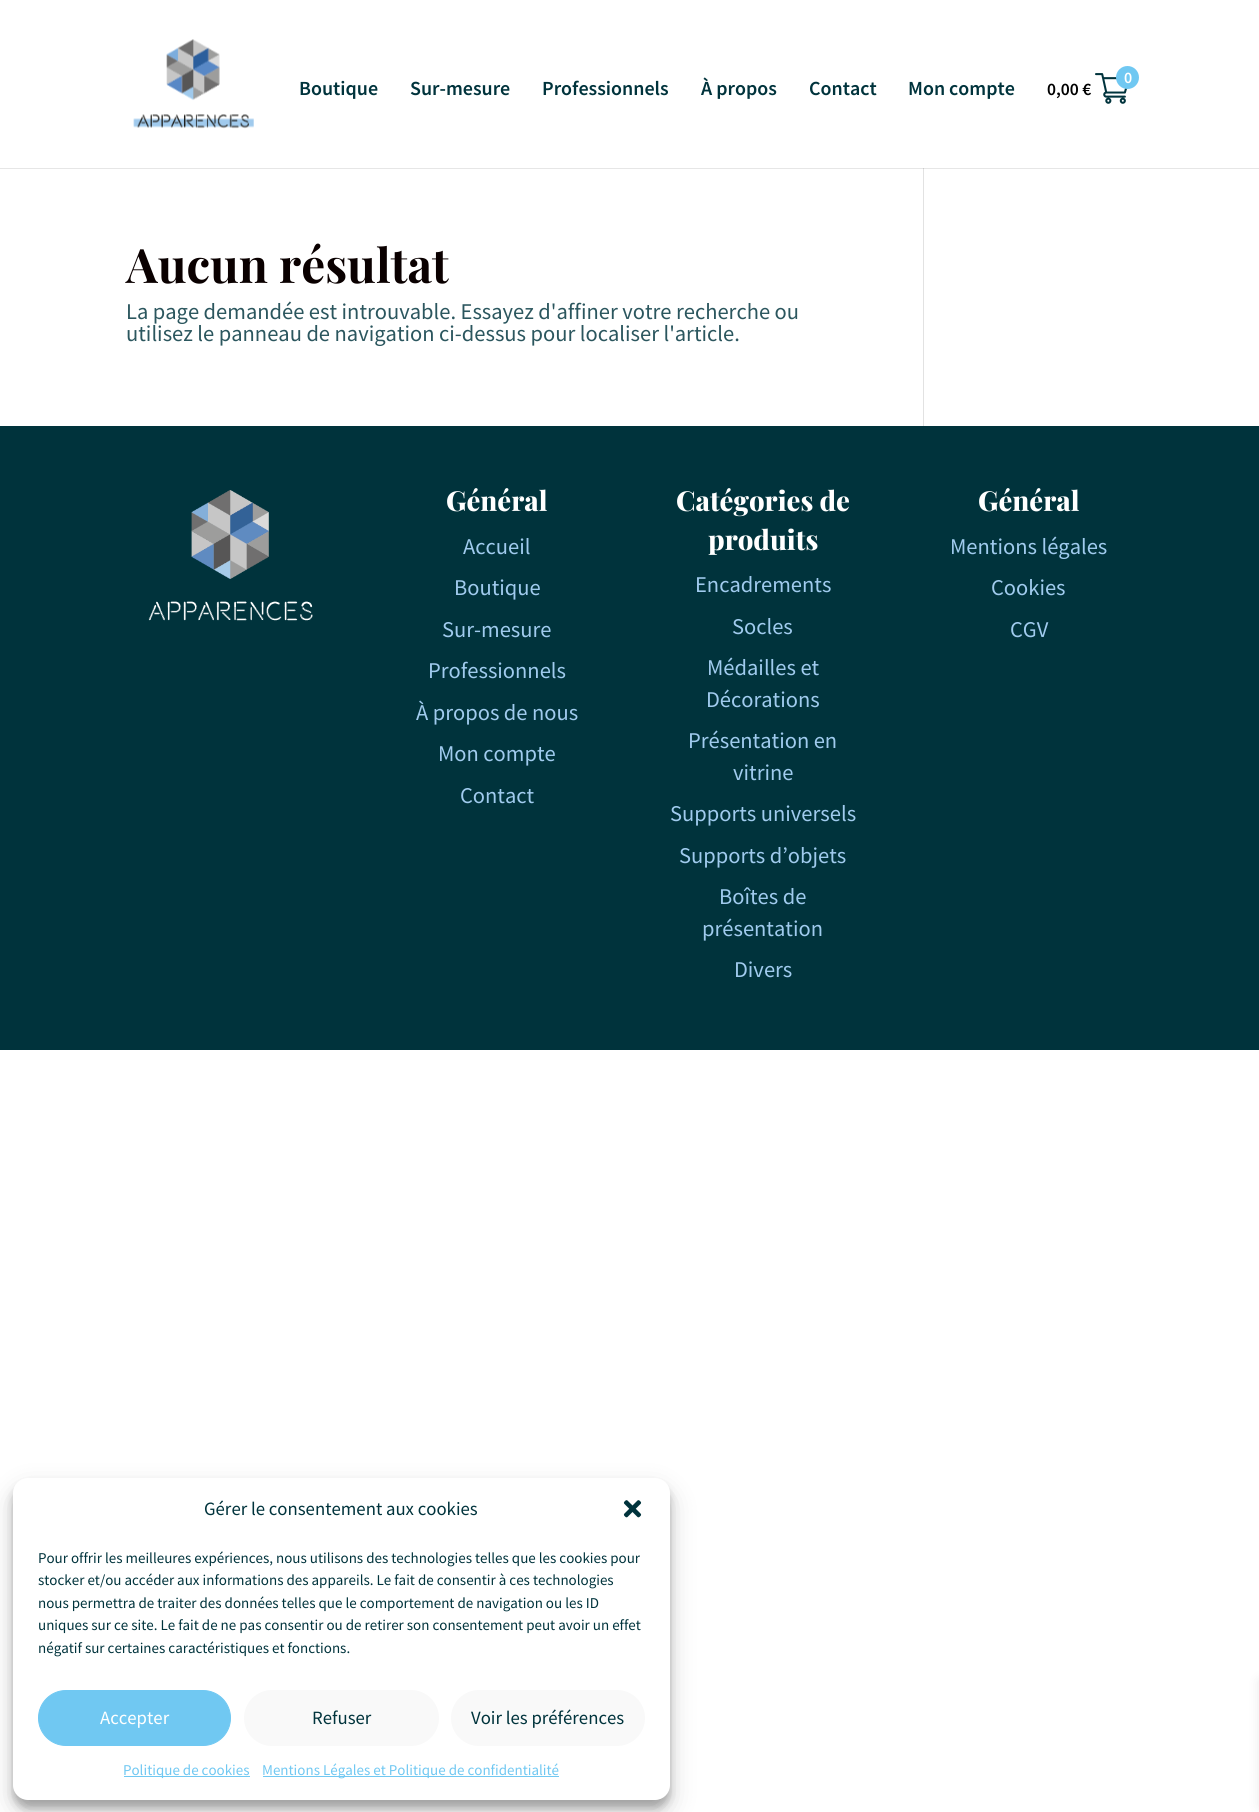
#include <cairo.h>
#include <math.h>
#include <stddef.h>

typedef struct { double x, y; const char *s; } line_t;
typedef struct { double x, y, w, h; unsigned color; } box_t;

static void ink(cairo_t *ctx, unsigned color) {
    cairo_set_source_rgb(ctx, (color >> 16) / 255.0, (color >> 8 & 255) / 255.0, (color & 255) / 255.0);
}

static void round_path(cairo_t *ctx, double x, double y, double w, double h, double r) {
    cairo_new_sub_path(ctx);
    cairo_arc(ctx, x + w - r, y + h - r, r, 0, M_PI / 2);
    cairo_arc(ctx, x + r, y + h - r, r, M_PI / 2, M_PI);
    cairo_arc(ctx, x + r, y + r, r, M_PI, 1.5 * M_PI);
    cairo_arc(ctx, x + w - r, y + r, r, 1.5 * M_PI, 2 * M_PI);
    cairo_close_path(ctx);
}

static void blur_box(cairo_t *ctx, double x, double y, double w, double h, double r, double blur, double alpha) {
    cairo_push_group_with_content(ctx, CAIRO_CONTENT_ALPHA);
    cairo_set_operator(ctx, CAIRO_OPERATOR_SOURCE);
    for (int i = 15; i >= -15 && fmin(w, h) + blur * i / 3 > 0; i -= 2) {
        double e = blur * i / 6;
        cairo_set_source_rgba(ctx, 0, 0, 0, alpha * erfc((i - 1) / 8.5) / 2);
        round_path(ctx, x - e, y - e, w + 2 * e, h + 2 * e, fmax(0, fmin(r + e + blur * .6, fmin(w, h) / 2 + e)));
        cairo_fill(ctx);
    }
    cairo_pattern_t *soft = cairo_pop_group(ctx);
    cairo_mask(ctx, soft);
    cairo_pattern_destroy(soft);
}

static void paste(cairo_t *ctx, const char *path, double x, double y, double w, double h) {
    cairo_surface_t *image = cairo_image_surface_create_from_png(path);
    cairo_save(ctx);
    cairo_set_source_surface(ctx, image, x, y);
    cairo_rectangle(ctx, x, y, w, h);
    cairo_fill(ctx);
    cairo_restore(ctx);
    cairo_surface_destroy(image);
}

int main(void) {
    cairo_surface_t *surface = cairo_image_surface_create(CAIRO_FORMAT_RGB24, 1259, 1812);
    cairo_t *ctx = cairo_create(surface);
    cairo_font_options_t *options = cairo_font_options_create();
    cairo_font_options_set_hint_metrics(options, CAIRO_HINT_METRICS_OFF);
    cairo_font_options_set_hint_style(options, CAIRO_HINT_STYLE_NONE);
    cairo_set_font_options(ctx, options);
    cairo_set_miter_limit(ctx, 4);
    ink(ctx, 0xFFFFFF);
    cairo_paint(ctx);
    ink(ctx, 0xE6E6E6);
    cairo_rectangle(ctx, 0, 168, 1259, 1);
    cairo_fill(ctx);
    paste(ctx, "media/1.png", 133, 39, 121, 90);
    cairo_select_font_face(ctx, "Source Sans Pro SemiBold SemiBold", CAIRO_FONT_SLANT_NORMAL, CAIRO_FONT_WEIGHT_NORMAL);
    cairo_set_font_size(ctx, 20);
    ink(ctx, 0x00333C);
    {
        static const line_t items[] = {
            {299, 95, "Boutique"},
            {410, 95, "Sur-mesure"},
            {542, 95, "Professionnels"},
            {701, 95, "À propos"},
            {809, 95, "Contact"},
            {908, 95, "Mon compte"},
        };
        for (size_t i = 0; i < sizeof items / sizeof *items; i++) {
            cairo_move_to(ctx, items[i].x, items[i].y);
            cairo_show_text(ctx, items[i].s);
        }
    }
    paste(ctx, "media/2.png", 1095, 73, 33, 31);
    ink(ctx, 0x70C8F2);
    cairo_arc(ctx, 1127.5, 77.5, 11.5, 0, 2 * M_PI);
    cairo_fill(ctx);
    cairo_set_font_size(ctx, 16);
    ink(ctx, 0xFFFFFF);
    cairo_move_to(ctx, 1124, 83);
    cairo_show_text(ctx, "0");
    cairo_set_font_size(ctx, 17.5);
    ink(ctx, 0x000000);
    cairo_move_to(ctx, 1047, 95);
    cairo_show_text(ctx, "0,00 €");
    cairo_select_font_face(ctx, "Playfair Display", CAIRO_FONT_SLANT_NORMAL, CAIRO_FONT_WEIGHT_BOLD);
    cairo_set_font_size(ctx, 47.5);
    ink(ctx, 0x0A0000);
    cairo_move_to(ctx, 126, 283);
    cairo_show_text(ctx, "Aucun résultat");
    cairo_select_font_face(ctx, "Source Sans Pro", CAIRO_FONT_SLANT_NORMAL, CAIRO_FONT_WEIGHT_NORMAL);
    cairo_set_font_size(ctx, 22.5);
    ink(ctx, 0x2B565E);
    cairo_move_to(ctx, 126, 319);
    cairo_show_text(ctx, "La page demandée est introuvable. Essayez d'affiner votre recherche ou");
    cairo_move_to(ctx, 126, 341);
    cairo_show_text(ctx, "utilisez le panneau de navigation ci-dessus pour localiser l'article.");
    {
        static const box_t items[] = {
            {923, 168, 1, 258, 0xE2E2E2},
            {923, 168, 1, 1, 0xCBCBCB},
            {0, 426, 1259, 624, 0x00333C},
        };
        for (size_t i = 0; i < sizeof items / sizeof *items; i++) {
            ink(ctx, items[i].color);
            cairo_rectangle(ctx, items[i].x, items[i].y, items[i].w, items[i].h);
            cairo_fill(ctx);
        }
    }
    paste(ctx, "media/3.png", 148, 490, 165, 131);
    cairo_select_font_face(ctx, "Playfair Display ExtraBold", CAIRO_FONT_SLANT_NORMAL, CAIRO_FONT_WEIGHT_NORMAL);
    cairo_set_font_size(ctx, 27.5);
    ink(ctx, 0xFFFFFF);
    cairo_move_to(ctx, 446, 511);
    cairo_show_text(ctx, "Général");
    cairo_select_font_face(ctx, "Source Sans Pro", CAIRO_FONT_SLANT_NORMAL, CAIRO_FONT_WEIGHT_NORMAL);
    cairo_set_font_size(ctx, 22.5);
    ink(ctx, 0xA0CBEE);
    {
        static const line_t items[] = {
            {463, 554, "Accueil"},
            {454, 595, "Boutique"},
            {442, 637, "Sur-mesure"},
            {428, 678, "Professionnels"},
            {416, 720, "À propos de nous"},
            {438, 761, "Mon compte"},
            {460, 803, "Contact"},
        };
        for (size_t i = 0; i < sizeof items / sizeof *items; i++) {
            cairo_move_to(ctx, items[i].x, items[i].y);
            cairo_show_text(ctx, items[i].s);
        }
    }
    cairo_select_font_face(ctx, "Playfair Display ExtraBold", CAIRO_FONT_SLANT_NORMAL, CAIRO_FONT_WEIGHT_NORMAL);
    cairo_set_font_size(ctx, 27.5);
    ink(ctx, 0xFFFFFF);
    cairo_move_to(ctx, 676, 511);
    cairo_show_text(ctx, "Catégories de");
    cairo_move_to(ctx, 708, 550);
    cairo_show_text(ctx, "produits");
    cairo_select_font_face(ctx, "Source Sans Pro", CAIRO_FONT_SLANT_NORMAL, CAIRO_FONT_WEIGHT_NORMAL);
    cairo_set_font_size(ctx, 22.5);
    ink(ctx, 0xA0CBEE);
    {
        static const line_t items[] = {
            {695, 592, "Encadrements"},
            {732, 634, "Socles"},
            {707, 675, "Médailles et"},
            {706, 707, "Décorations"},
            {688, 748, "Présentation en"},
            {733, 780, "vitrine"},
            {670, 821, "Supports universels"},
            {679, 863, "Supports d’objets"},
            {719, 904, "Boîtes de"},
            {702, 936, "présentation"},
            {734, 977, "Divers"},
        };
        for (size_t i = 0; i < sizeof items / sizeof *items; i++) {
            cairo_move_to(ctx, items[i].x, items[i].y);
            cairo_show_text(ctx, items[i].s);
        }
    }
    cairo_select_font_face(ctx, "Playfair Display ExtraBold", CAIRO_FONT_SLANT_NORMAL, CAIRO_FONT_WEIGHT_NORMAL);
    cairo_set_font_size(ctx, 27.5);
    ink(ctx, 0xFFFFFF);
    cairo_move_to(ctx, 978, 511);
    cairo_show_text(ctx, "Général");
    cairo_select_font_face(ctx, "Source Sans Pro", CAIRO_FONT_SLANT_NORMAL, CAIRO_FONT_WEIGHT_NORMAL);
    cairo_set_font_size(ctx, 22.5);
    ink(ctx, 0xA0CBEE);
    {
        static const line_t items[] = {
            {950, 554, "Mentions légales"},
            {991, 595, "Cookies"},
            {1010, 637, "CGV"},
        };
        for (size_t i = 0; i < sizeof items / sizeof *items; i++) {
            cairo_move_to(ctx, items[i].x, items[i].y);
            cairo_show_text(ctx, items[i].s);
        }
    }
    ink(ctx, 0x000000);
    blur_box(ctx, 13, 1485, 657, 323, 15, 4, 0.23);
    blur_box(ctx, 13, 1490, 657, 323, 15, 12.5, 0.19);
    ink(ctx, 0xFFFFFF);
    round_path(ctx, 13, 1478, 657, 322, 15);
    cairo_fill(ctx);
    cairo_set_font_size(ctx, 18.75);
    ink(ctx, 0x00333C);
    cairo_move_to(ctx, 204, 1515);
    cairo_show_text(ctx, "Gérer le consentement aux cookies");
    paste(ctx, "media/4.png", 623, 1500, 19, 18);
    cairo_set_font_size(ctx, 15);
    {
        static const line_t items[] = {
            {38, 1563, "Pour offrir les meilleures expériences, nous utilisons des technologies telles que les cookies pour"},
            {38, 1585, "stocker et/ou accéder aux informations des appareils. Le fait de consentir à ces technologies"},
            {38, 1608, "nous permettra de traiter des données telles que le comportement de navigation ou les ID"},
            {38, 1630, "uniques sur ce site. Le fait de ne pas consentir ou de retirer son consentement peut avoir un effet"},
            {38, 1653, "négatif sur certaines caractéristiques et fonctions."},
        };
        for (size_t i = 0; i < sizeof items / sizeof *items; i++) {
            cairo_move_to(ctx, items[i].x, items[i].y);
            cairo_show_text(ctx, items[i].s);
        }
    }
    ink(ctx, 0x70C8F2);
    round_path(ctx, 38.5, 1690.5, 192, 55, 27.5);
    cairo_fill_preserve(ctx);
    cairo_set_line_width(ctx, 1);
    cairo_stroke(ctx);
    cairo_set_font_size(ctx, 18.75);
    ink(ctx, 0xFFFFFF);
    cairo_move_to(ctx, 100, 1724);
    cairo_show_text(ctx, "Accepter");
    ink(ctx, 0xF9F9F9);
    round_path(ctx, 244, 1690, 195, 56, 28);
    cairo_fill(ctx);
    ink(ctx, 0x00333C);
    cairo_move_to(ctx, 312, 1724);
    cairo_show_text(ctx, "Refuser");
    ink(ctx, 0xF9F9F9);
    round_path(ctx, 451, 1690, 194, 56, 28);
    cairo_fill(ctx);
    ink(ctx, 0x00333C);
    cairo_move_to(ctx, 471, 1724);
    cairo_show_text(ctx, "Voir les préférences");
    ink(ctx, 0x70C8F2);
    cairo_rectangle(ctx, 124, 1776, 126, 1);
    cairo_fill(ctx);
    cairo_set_font_size(ctx, 15);
    cairo_move_to(ctx, 123, 1775);
    cairo_show_text(ctx, "Politique de cookies");
    cairo_rectangle(ctx, 263, 1776, 296, 1);
    cairo_fill(ctx);
    cairo_move_to(ctx, 262, 1775);
    cairo_show_text(ctx, "Mentions Légales et Politique de confidentialité");
    ink(ctx, 0x000000);
    blur_box(ctx, 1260, 1681, 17, 125, 0, 6, 0.1);
    cairo_surface_write_to_png(surface, "image.png");
    cairo_font_options_destroy(options);
    cairo_destroy(ctx);
    cairo_surface_destroy(surface);
    return 0;
}
